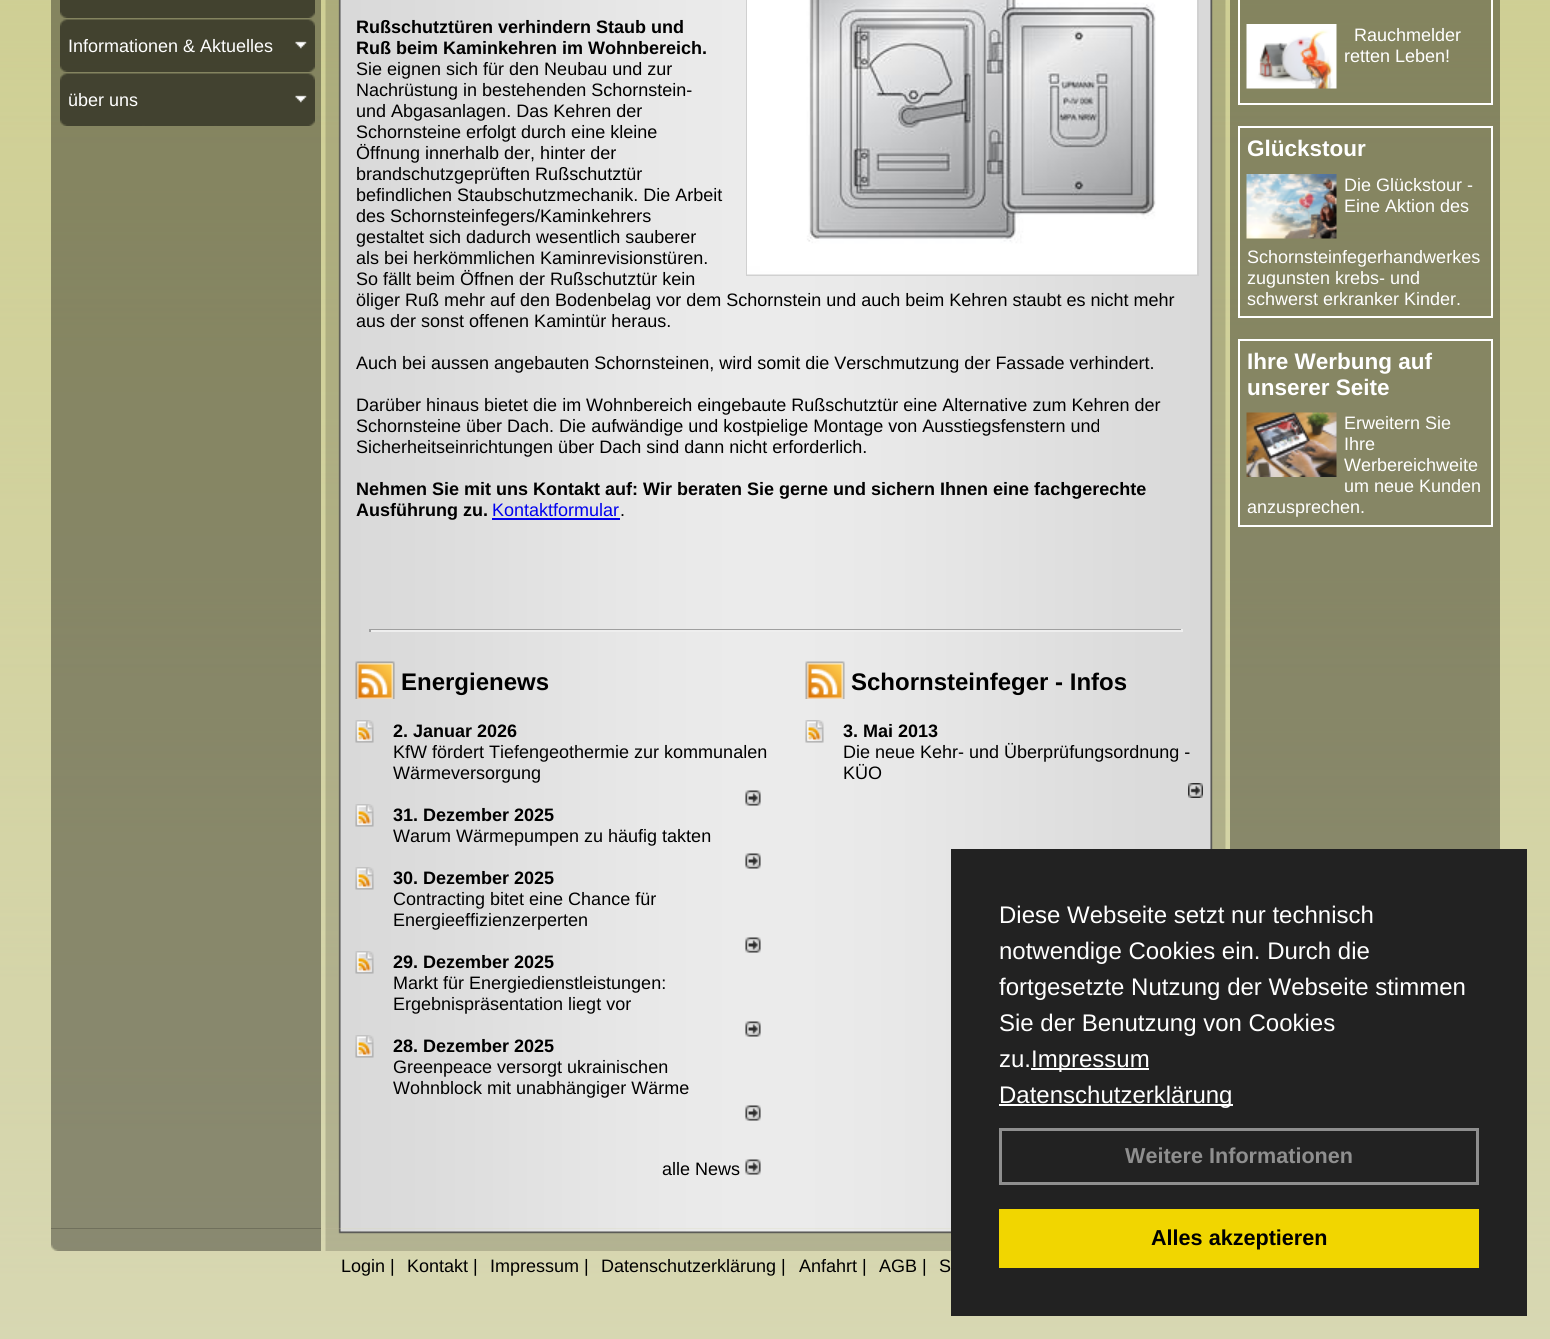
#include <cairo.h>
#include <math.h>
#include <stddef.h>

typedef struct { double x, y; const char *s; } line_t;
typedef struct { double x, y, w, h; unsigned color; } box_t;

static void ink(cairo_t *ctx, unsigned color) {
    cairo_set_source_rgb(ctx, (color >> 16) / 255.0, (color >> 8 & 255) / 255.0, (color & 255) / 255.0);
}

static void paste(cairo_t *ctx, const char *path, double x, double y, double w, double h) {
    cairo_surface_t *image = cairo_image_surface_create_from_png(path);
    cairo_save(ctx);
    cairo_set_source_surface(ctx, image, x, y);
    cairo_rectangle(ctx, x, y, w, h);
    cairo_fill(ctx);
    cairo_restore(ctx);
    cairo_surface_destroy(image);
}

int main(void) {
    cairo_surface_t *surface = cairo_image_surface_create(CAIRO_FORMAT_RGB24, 1550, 1339);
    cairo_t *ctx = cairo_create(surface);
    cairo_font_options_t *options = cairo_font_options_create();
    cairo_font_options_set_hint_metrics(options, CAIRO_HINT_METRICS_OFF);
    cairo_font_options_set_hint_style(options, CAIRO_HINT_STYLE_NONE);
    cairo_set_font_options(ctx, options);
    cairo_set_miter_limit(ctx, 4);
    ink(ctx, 0xFFFFFF);
    cairo_paint(ctx);
    paste(ctx, "media/1.png", 0, 0, 1550, 1339);
    cairo_set_source_rgba(ctx, 0, 0, 0, 0.36);
    cairo_rectangle(ctx, 51, 0, 270, 1229);
    cairo_fill(ctx);
    paste(ctx, "media/2.png", 60, 0, 255, 18);
    paste(ctx, "media/3.png", 60, 19, 255, 53);
    cairo_select_font_face(ctx, "Liberation Sans", CAIRO_FONT_SLANT_NORMAL, CAIRO_FONT_WEIGHT_NORMAL);
    cairo_set_font_size(ctx, 18);
    ink(ctx, 0xFFFFFF);
    cairo_move_to(ctx, 68, 52);
    cairo_show_text(ctx, "Informationen & Aktuelles");
    paste(ctx, "media/4.png", 295, 41, 12, 8);
    paste(ctx, "media/5.png", 60, 73, 255, 53);
    cairo_move_to(ctx, 68, 106);
    cairo_show_text(ctx, "über uns");
    paste(ctx, "media/6.png", 295, 95, 12, 8);
    paste(ctx, "media/7.png", 325, 0, 901, 1229);
    cairo_select_font_face(ctx, "Liberation Sans", CAIRO_FONT_SLANT_NORMAL, CAIRO_FONT_WEIGHT_BOLD);
    ink(ctx, 0x000000);
    cairo_move_to(ctx, 356, 33);
    cairo_show_text(ctx, "Rußschutztüren verhindern Staub und");
    cairo_rectangle(ctx, 747, -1, 451, 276);
    ink(ctx, 0xD0D0D0);
    cairo_stroke(ctx);
    paste(ctx, "media/8.png", 747, 0, 450, 275);
    ink(ctx, 0x000000);
    cairo_move_to(ctx, 356, 54);
    cairo_show_text(ctx, "Ruß beim Kaminkehren im Wohnbereich.");
    cairo_select_font_face(ctx, "Liberation Sans", CAIRO_FONT_SLANT_NORMAL, CAIRO_FONT_WEIGHT_NORMAL);
    {
        static const line_t items[] = {
            {356, 75, "Sie eignen sich für den Neubau und zur"},
            {356, 96, "Nachrüstung in bestehenden Schornstein-"},
            {356, 117, "und Abgasanlagen. Das Kehren der"},
            {356, 138, "Schornsteine erfolgt durch eine kleine"},
            {356, 159, "Öffnung innerhalb der, hinter der"},
            {356, 180, "brandschutzgeprüften Rußschutztür"},
            {356, 201, "befindlichen Staubschutzmechanik. Die Arbeit"},
            {356, 222, "des Schornsteinfegers/Kaminkehrers"},
            {356, 243, "gestaltet sich dadurch wesentlich sauberer"},
            {356, 264, "als bei herkömmlichen Kaminrevisionstüren."},
            {356, 285, "So fällt beim Öffnen der Rußschutztür kein"},
            {356, 306, "öliger Ruß mehr auf den Bodenbelag vor dem Schornstein und auch beim Kehren staubt es nicht mehr"},
            {356, 327, "aus der sonst offenen Kamintür heraus."},
            {356, 369, "Auch bei aussen angebauten Schornsteinen, wird somit die Verschmutzung der Fassade verhindert."},
            {356, 411, "Darüber hinaus bietet die im Wohnbereich eingebaute Rußschutztür eine Alternative zum Kehren der"},
            {356, 432, "Schornsteine über Dach. Die aufwändige und kostpielige Montage von Ausstiegsfenstern und"},
            {356, 453, "Sicherheitseinrichtungen über Dach sind dann nicht erforderlich."},
        };
        for (size_t i = 0; i < sizeof items / sizeof *items; i++) {
            cairo_move_to(ctx, items[i].x, items[i].y);
            cairo_show_text(ctx, items[i].s);
        }
    }
    cairo_select_font_face(ctx, "Liberation Sans", CAIRO_FONT_SLANT_NORMAL, CAIRO_FONT_WEIGHT_BOLD);
    cairo_move_to(ctx, 356, 495);
    cairo_show_text(ctx, "Nehmen Sie mit uns Kontakt auf: Wir beraten Sie gerne und sichern Ihnen eine fachgerechte");
    cairo_move_to(ctx, 356, 516);
    cairo_show_text(ctx, "Ausführung zu.");
    cairo_select_font_face(ctx, "Liberation Sans", CAIRO_FONT_SLANT_NORMAL, CAIRO_FONT_WEIGHT_NORMAL);
    ink(ctx, 0x0000EE);
    cairo_move_to(ctx, 492, 516);
    cairo_show_text(ctx, "Kontaktformular");
    cairo_rectangle(ctx, 492, 518, 128, 2);
    cairo_fill(ctx);
    ink(ctx, 0x000000);
    cairo_move_to(ctx, 620, 516);
    cairo_show_text(ctx, ".");
    {
        static const box_t items[] = {
            {369, 629, 813, 1, 0x9F9F9F},
            {1181, 629, 2, 3, 0xEEEEEE},
            {369, 630, 813, 2, 0xEEEEEE},
            {369, 629, 2, 3, 0x9F9F9F},
        };
        for (size_t i = 0; i < sizeof items / sizeof *items; i++) {
            ink(ctx, items[i].color);
            cairo_rectangle(ctx, items[i].x, items[i].y, items[i].w, items[i].h);
            cairo_fill(ctx);
        }
    }
    paste(ctx, "media/9.png", 355, 661, 40, 38);
    cairo_select_font_face(ctx, "Liberation Sans", CAIRO_FONT_SLANT_NORMAL, CAIRO_FONT_WEIGHT_BOLD);
    cairo_set_font_size(ctx, 24);
    ink(ctx, 0x000000);
    cairo_move_to(ctx, 401, 690);
    cairo_show_text(ctx, "Energienews");
    paste(ctx, "media/10.png", 355, 720, 19, 23);
    cairo_set_font_size(ctx, 18);
    cairo_move_to(ctx, 393, 737);
    cairo_show_text(ctx, "2. Januar 2026");
    cairo_select_font_face(ctx, "Liberation Sans", CAIRO_FONT_SLANT_NORMAL, CAIRO_FONT_WEIGHT_NORMAL);
    cairo_move_to(ctx, 393, 758);
    cairo_show_text(ctx, "KfW fördert Tiefengeothermie zur kommunalen");
    cairo_move_to(ctx, 393, 779);
    cairo_show_text(ctx, "Wärmeversorgung");
    paste(ctx, "media/11.png", 745, 790, 16, 16);
    paste(ctx, "media/10.png", 355, 804, 19, 23);
    cairo_select_font_face(ctx, "Liberation Sans", CAIRO_FONT_SLANT_NORMAL, CAIRO_FONT_WEIGHT_BOLD);
    cairo_move_to(ctx, 393, 821);
    cairo_show_text(ctx, "31. Dezember 2025");
    cairo_select_font_face(ctx, "Liberation Sans", CAIRO_FONT_SLANT_NORMAL, CAIRO_FONT_WEIGHT_NORMAL);
    cairo_move_to(ctx, 393, 842);
    cairo_show_text(ctx, "Warum Wärmepumpen zu häufig takten");
    paste(ctx, "media/11.png", 745, 853, 16, 16);
    paste(ctx, "media/10.png", 355, 867, 19, 23);
    cairo_select_font_face(ctx, "Liberation Sans", CAIRO_FONT_SLANT_NORMAL, CAIRO_FONT_WEIGHT_BOLD);
    cairo_move_to(ctx, 393, 884);
    cairo_show_text(ctx, "30. Dezember 2025");
    cairo_select_font_face(ctx, "Liberation Sans", CAIRO_FONT_SLANT_NORMAL, CAIRO_FONT_WEIGHT_NORMAL);
    cairo_move_to(ctx, 393, 905);
    cairo_show_text(ctx, "Contracting bitet eine Chance für");
    cairo_move_to(ctx, 393, 926);
    cairo_show_text(ctx, "Energieeffizienzerperten");
    paste(ctx, "media/11.png", 745, 937, 16, 16);
    paste(ctx, "media/10.png", 355, 951, 19, 23);
    cairo_select_font_face(ctx, "Liberation Sans", CAIRO_FONT_SLANT_NORMAL, CAIRO_FONT_WEIGHT_BOLD);
    cairo_move_to(ctx, 393, 968);
    cairo_show_text(ctx, "29. Dezember 2025");
    cairo_select_font_face(ctx, "Liberation Sans", CAIRO_FONT_SLANT_NORMAL, CAIRO_FONT_WEIGHT_NORMAL);
    cairo_move_to(ctx, 393, 989);
    cairo_show_text(ctx, "Markt für Energiedienstleistungen:");
    cairo_move_to(ctx, 393, 1010);
    cairo_show_text(ctx, "Ergebnispräsentation liegt vor");
    paste(ctx, "media/11.png", 745, 1021, 16, 16);
    paste(ctx, "media/10.png", 355, 1035, 19, 23);
    cairo_select_font_face(ctx, "Liberation Sans", CAIRO_FONT_SLANT_NORMAL, CAIRO_FONT_WEIGHT_BOLD);
    cairo_move_to(ctx, 393, 1052);
    cairo_show_text(ctx, "28. Dezember 2025");
    cairo_select_font_face(ctx, "Liberation Sans", CAIRO_FONT_SLANT_NORMAL, CAIRO_FONT_WEIGHT_NORMAL);
    cairo_move_to(ctx, 393, 1073);
    cairo_show_text(ctx, "Greenpeace versorgt ukrainischen");
    cairo_move_to(ctx, 393, 1094);
    cairo_show_text(ctx, "Wohnblock mit unabhängiger Wärme");
    paste(ctx, "media/11.png", 745, 1105, 16, 16);
    cairo_move_to(ctx, 662, 1175);
    cairo_show_text(ctx, "alle News");
    paste(ctx, "media/11.png", 745, 1159, 16, 16);
    paste(ctx, "media/12.png", 805, 661, 40, 38);
    cairo_select_font_face(ctx, "Liberation Sans", CAIRO_FONT_SLANT_NORMAL, CAIRO_FONT_WEIGHT_BOLD);
    cairo_set_font_size(ctx, 24);
    cairo_move_to(ctx, 851, 690);
    cairo_show_text(ctx, "Schornsteinfeger - Infos");
    paste(ctx, "media/13.png", 805, 720, 19, 23);
    cairo_set_font_size(ctx, 18);
    cairo_move_to(ctx, 843, 737);
    cairo_show_text(ctx, "3. Mai 2013");
    cairo_select_font_face(ctx, "Liberation Sans", CAIRO_FONT_SLANT_NORMAL, CAIRO_FONT_WEIGHT_NORMAL);
    cairo_move_to(ctx, 843, 758);
    cairo_show_text(ctx, "Die neue Kehr- und Überprüfungsordnung -");
    cairo_move_to(ctx, 843, 779);
    cairo_show_text(ctx, "KÜO");
    paste(ctx, "media/14.png", 1188, 783, 15, 15);
    cairo_set_source_rgba(ctx, 0, 0, 0, 0.36);
    cairo_rectangle(ctx, 1230, 0, 270, 849);
    cairo_fill(ctx);
    cairo_rectangle(ctx, 1239, -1, 253, 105);
    ink(ctx, 0xFFFFFF);
    cairo_stroke(ctx);
    paste(ctx, "media/15.png", 1246, 24, 91, 65);
    cairo_move_to(ctx, 1354, 41);
    cairo_show_text(ctx, "Rauchmelder");
    cairo_move_to(ctx, 1344, 62);
    cairo_show_text(ctx, "retten Leben!");
    cairo_rectangle(ctx, 1239, 127, 253, 190);
    cairo_stroke(ctx);
    cairo_select_font_face(ctx, "Liberation Sans", CAIRO_FONT_SLANT_NORMAL, CAIRO_FONT_WEIGHT_BOLD);
    cairo_set_font_size(ctx, 22.5);
    cairo_move_to(ctx, 1247, 156);
    cairo_show_text(ctx, "Glückstour");
    paste(ctx, "media/16.png", 1246, 174, 91, 65);
    cairo_select_font_face(ctx, "Liberation Sans", CAIRO_FONT_SLANT_NORMAL, CAIRO_FONT_WEIGHT_NORMAL);
    cairo_set_font_size(ctx, 18);
    {
        static const line_t items[] = {
            {1344, 191, "Die Glückstour -"},
            {1344, 212, "Eine Aktion des"},
            {1247, 263, "Schornsteinfegerhandwerkes"},
            {1247, 284, "zugunsten krebs- und"},
            {1247, 305, "schwerst erkranker Kinder."},
        };
        for (size_t i = 0; i < sizeof items / sizeof *items; i++) {
            cairo_move_to(ctx, items[i].x, items[i].y);
            cairo_show_text(ctx, items[i].s);
        }
    }
    cairo_rectangle(ctx, 1239, 340, 253, 186);
    cairo_stroke(ctx);
    cairo_select_font_face(ctx, "Liberation Sans", CAIRO_FONT_SLANT_NORMAL, CAIRO_FONT_WEIGHT_BOLD);
    cairo_set_font_size(ctx, 22.5);
    cairo_move_to(ctx, 1247, 369);
    cairo_show_text(ctx, "Ihre Werbung auf");
    cairo_move_to(ctx, 1247, 395);
    cairo_show_text(ctx, "unserer Seite");
    paste(ctx, "media/17.png", 1246, 412, 91, 65);
    cairo_select_font_face(ctx, "Liberation Sans", CAIRO_FONT_SLANT_NORMAL, CAIRO_FONT_WEIGHT_NORMAL);
    cairo_set_font_size(ctx, 18);
    {
        static const line_t items[] = {
            {1344, 429, "Erweitern Sie"},
            {1344, 450, "Ihre"},
            {1344, 471, "Werbereichweite"},
            {1344, 492, "um neue Kunden"},
            {1247, 513, "anzusprechen."},
        };
        for (size_t i = 0; i < sizeof items / sizeof *items; i++) {
            cairo_move_to(ctx, items[i].x, items[i].y);
            cairo_show_text(ctx, items[i].s);
        }
    }
    paste(ctx, "media/18.png", 51, 1228, 270, 23);
    paste(ctx, "media/19.png", 325, 1228, 626, 23);
    ink(ctx, 0x000000);
    {
        static const line_t items[] = {
            {341, 1272, "Login |"},
            {407, 1272, "Kontakt |"},
            {490, 1272, "Impressum |"},
            {601, 1272, "Datenschutzerklärung |"},
            {799, 1272, "Anfahrt |"},
            {879, 1272, "AGB |"},
            {939, 1272, "S"},
        };
        for (size_t i = 0; i < sizeof items / sizeof *items; i++) {
            cairo_move_to(ctx, items[i].x, items[i].y);
            cairo_show_text(ctx, items[i].s);
        }
    }
    ink(ctx, 0x222222);
    cairo_rectangle(ctx, 951, 849, 576, 467);
    cairo_fill(ctx);
    cairo_set_font_size(ctx, 24);
    ink(ctx, 0xFFFFFF);
    {
        static const line_t items[] = {
            {999, 923, "Diese Webseite setzt nur technisch"},
            {999, 959, "notwendige Cookies ein. Durch die"},
            {999, 995, "fortgesetzte Nutzung der Webseite stimmen"},
            {999, 1031, "Sie der Benutzung von Cookies"},
            {999, 1067, "zu."},
        };
        for (size_t i = 0; i < sizeof items / sizeof *items; i++) {
            cairo_move_to(ctx, items[i].x, items[i].y);
            cairo_show_text(ctx, items[i].s);
        }
    }
    cairo_rectangle(ctx, 1031, 1068, 118, 2);
    cairo_fill(ctx);
    cairo_move_to(ctx, 1031, 1067);
    cairo_show_text(ctx, "Impressum");
    cairo_rectangle(ctx, 999, 1104, 234, 2);
    cairo_fill(ctx);
    cairo_move_to(ctx, 999, 1103);
    cairo_show_text(ctx, "Datenschutzerklärung");
    cairo_rectangle(ctx, 1000.5, 1129.5, 477, 54);
    ink(ctx, 0x8F8F8F);
    cairo_set_line_width(ctx, 3);
    cairo_stroke(ctx);
    cairo_select_font_face(ctx, "Liberation Sans", CAIRO_FONT_SLANT_NORMAL, CAIRO_FONT_WEIGHT_BOLD);
    cairo_set_font_size(ctx, 21.6);
    cairo_move_to(ctx, 1125, 1163);
    cairo_show_text(ctx, "Weitere Informationen");
    ink(ctx, 0xF1D600);
    cairo_rectangle(ctx, 999, 1209, 480, 59);
    cairo_fill(ctx);
    ink(ctx, 0x000000);
    cairo_move_to(ctx, 1151, 1245);
    cairo_show_text(ctx, "Alles akzeptieren");
    cairo_surface_write_to_png(surface, "image.png");
    cairo_font_options_destroy(options);
    cairo_destroy(ctx);
    cairo_surface_destroy(surface);
    return 0;
}
